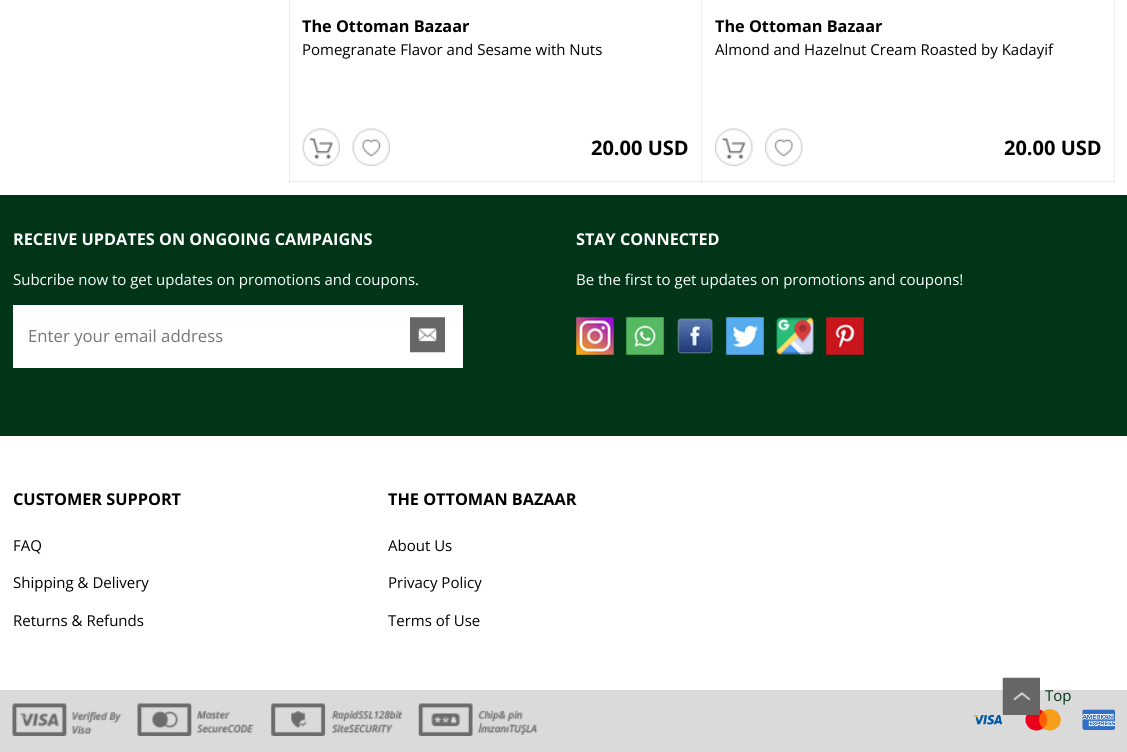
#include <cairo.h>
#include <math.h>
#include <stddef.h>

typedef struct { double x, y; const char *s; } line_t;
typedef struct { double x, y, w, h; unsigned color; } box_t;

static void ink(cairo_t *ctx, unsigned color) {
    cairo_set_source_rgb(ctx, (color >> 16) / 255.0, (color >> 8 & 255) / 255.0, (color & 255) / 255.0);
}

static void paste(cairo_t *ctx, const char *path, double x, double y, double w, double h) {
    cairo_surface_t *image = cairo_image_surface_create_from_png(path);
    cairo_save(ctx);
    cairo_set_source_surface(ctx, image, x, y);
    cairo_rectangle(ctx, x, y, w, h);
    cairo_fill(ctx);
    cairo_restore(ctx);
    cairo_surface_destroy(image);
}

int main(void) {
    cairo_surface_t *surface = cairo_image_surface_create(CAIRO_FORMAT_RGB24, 1127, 752);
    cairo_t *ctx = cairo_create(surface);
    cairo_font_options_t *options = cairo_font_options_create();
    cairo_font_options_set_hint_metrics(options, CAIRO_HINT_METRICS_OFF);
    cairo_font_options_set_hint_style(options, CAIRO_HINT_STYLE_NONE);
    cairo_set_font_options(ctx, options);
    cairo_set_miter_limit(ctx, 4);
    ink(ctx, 0xFFFFFF);
    cairo_paint(ctx);
    {
        static const box_t items[] = {
            {289, 0, 1, 183, 0xECECEC},
            {701, 0, 1, 183, 0xECECEC},
            {290, 181, 413, 1, 0xECECEC},
        };
        for (size_t i = 0; i < sizeof items / sizeof *items; i++) {
            ink(ctx, items[i].color);
            cairo_rectangle(ctx, items[i].x, items[i].y, items[i].w, items[i].h);
            cairo_fill(ctx);
        }
    }
    cairo_select_font_face(ctx, "Open Sans", CAIRO_FONT_SLANT_NORMAL, CAIRO_FONT_WEIGHT_BOLD);
    cairo_set_font_size(ctx, 16.25);
    ink(ctx, 0x000000);
    cairo_move_to(ctx, 302, 32);
    cairo_show_text(ctx, "The Ottoman Bazaar");
    cairo_select_font_face(ctx, "Open Sans", CAIRO_FONT_SLANT_NORMAL, CAIRO_FONT_WEIGHT_NORMAL);
    cairo_set_font_size(ctx, 15);
    cairo_move_to(ctx, 302, 55);
    cairo_show_text(ctx, "Pomegranate Flavor and Sesame with Nuts");
    paste(ctx, "media/1.png", 302, 128, 38, 38);
    paste(ctx, "media/2.png", 352, 128, 38, 38);
    cairo_select_font_face(ctx, "Open Sans", CAIRO_FONT_SLANT_NORMAL, CAIRO_FONT_WEIGHT_BOLD);
    cairo_set_font_size(ctx, 20);
    cairo_move_to(ctx, 591, 155);
    cairo_show_text(ctx, "20.00 USD");
    ink(ctx, 0xECECEC);
    cairo_rectangle(ctx, 1114, 0, 1, 183);
    cairo_fill(ctx);
    cairo_rectangle(ctx, 703, 181, 412, 1);
    cairo_fill(ctx);
    cairo_set_font_size(ctx, 16.25);
    ink(ctx, 0x000000);
    cairo_move_to(ctx, 715, 32);
    cairo_show_text(ctx, "The Ottoman Bazaar");
    cairo_select_font_face(ctx, "Open Sans", CAIRO_FONT_SLANT_NORMAL, CAIRO_FONT_WEIGHT_NORMAL);
    cairo_set_font_size(ctx, 15);
    cairo_move_to(ctx, 715, 55);
    cairo_show_text(ctx, "Almond and Hazelnut Cream Roasted by Kadayif");
    paste(ctx, "media/3.png", 715, 128, 38, 38);
    paste(ctx, "media/4.png", 765, 128, 38, 38);
    cairo_select_font_face(ctx, "Open Sans", CAIRO_FONT_SLANT_NORMAL, CAIRO_FONT_WEIGHT_BOLD);
    cairo_set_font_size(ctx, 20);
    cairo_move_to(ctx, 1004, 155);
    cairo_show_text(ctx, "20.00 USD");
    ink(ctx, 0xDADADA);
    cairo_rectangle(ctx, 0, 690, 1127, 62);
    cairo_fill(ctx);
    paste(ctx, "media/18.png", 1025, 709, 36, 22);
    paste(ctx, "media/5.png", 1002, 677, 38, 38);
    cairo_select_font_face(ctx, "Open Sans", CAIRO_FONT_SLANT_NORMAL, CAIRO_FONT_WEIGHT_NORMAL);
    cairo_set_font_size(ctx, 15);
    ink(ctx, 0x003617);
    cairo_move_to(ctx, 1045, 701);
    cairo_show_text(ctx, "Top");
    cairo_rectangle(ctx, 0, 195, 1127, 241);
    cairo_fill(ctx);
    cairo_select_font_face(ctx, "Open Sans", CAIRO_FONT_SLANT_NORMAL, CAIRO_FONT_WEIGHT_BOLD);
    cairo_set_font_size(ctx, 16.25);
    ink(ctx, 0xFFFFFF);
    cairo_move_to(ctx, 13, 245);
    cairo_show_text(ctx, "RECEIVE UPDATES ON ONGOING CAMPAIGNS");
    cairo_select_font_face(ctx, "Open Sans", CAIRO_FONT_SLANT_NORMAL, CAIRO_FONT_WEIGHT_NORMAL);
    cairo_set_font_size(ctx, 15);
    cairo_move_to(ctx, 13, 285);
    cairo_show_text(ctx, "Subcribe now to get updates on promotions and coupons.");
    cairo_rectangle(ctx, 13, 305, 450, 63);
    cairo_fill(ctx);
    cairo_set_font_size(ctx, 16.75);
    ink(ctx, 0x757575);
    cairo_move_to(ctx, 28, 342);
    cairo_show_text(ctx, "Enter your email address");
    paste(ctx, "media/6.png", 410, 317, 35, 36);
    cairo_select_font_face(ctx, "Open Sans", CAIRO_FONT_SLANT_NORMAL, CAIRO_FONT_WEIGHT_BOLD);
    cairo_set_font_size(ctx, 16.25);
    ink(ctx, 0xFFFFFF);
    cairo_move_to(ctx, 576, 245);
    cairo_show_text(ctx, "STAY CONNECTED");
    cairo_select_font_face(ctx, "Open Sans", CAIRO_FONT_SLANT_NORMAL, CAIRO_FONT_WEIGHT_NORMAL);
    cairo_set_font_size(ctx, 15);
    cairo_move_to(ctx, 576, 285);
    cairo_show_text(ctx, "Be the first to get updates on promotions and coupons!");
    paste(ctx, "media/7.png", 576, 317, 38, 38);
    paste(ctx, "media/8.png", 626, 317, 38, 38);
    paste(ctx, "media/9.png", 677, 318, 36, 36);
    paste(ctx, "media/10.png", 726, 317, 38, 38);
    paste(ctx, "media/11.png", 776, 317, 38, 38);
    paste(ctx, "media/12.png", 826, 317, 38, 38);
    cairo_select_font_face(ctx, "Open Sans", CAIRO_FONT_SLANT_NORMAL, CAIRO_FONT_WEIGHT_BOLD);
    cairo_set_font_size(ctx, 16.25);
    ink(ctx, 0x000000);
    cairo_move_to(ctx, 13, 505);
    cairo_show_text(ctx, "CUSTOMER SUPPORT");
    cairo_select_font_face(ctx, "Open Sans", CAIRO_FONT_SLANT_NORMAL, CAIRO_FONT_WEIGHT_NORMAL);
    cairo_set_font_size(ctx, 15);
    {
        static const line_t items[] = {
            {13, 551, "FAQ"},
            {13, 588, "Shipping & Delivery"},
            {13, 626, "Returns & Refunds"},
        };
        for (size_t i = 0; i < sizeof items / sizeof *items; i++) {
            cairo_move_to(ctx, items[i].x, items[i].y);
            cairo_show_text(ctx, items[i].s);
        }
    }
    cairo_select_font_face(ctx, "Open Sans", CAIRO_FONT_SLANT_NORMAL, CAIRO_FONT_WEIGHT_BOLD);
    cairo_set_font_size(ctx, 16.25);
    cairo_move_to(ctx, 388, 505);
    cairo_show_text(ctx, "THE OTTOMAN BAZAAR");
    cairo_select_font_face(ctx, "Open Sans", CAIRO_FONT_SLANT_NORMAL, CAIRO_FONT_WEIGHT_NORMAL);
    cairo_set_font_size(ctx, 15);
    {
        static const line_t items[] = {
            {388, 551, "About Us"},
            {388, 588, "Privacy Policy"},
            {388, 626, "Terms of Use"},
        };
        for (size_t i = 0; i < sizeof items / sizeof *items; i++) {
            cairo_move_to(ctx, items[i].x, items[i].y);
            cairo_show_text(ctx, items[i].s);
        }
    }
    paste(ctx, "media/13.png", 12, 703, 110, 33);
    paste(ctx, "media/14.png", 137, 703, 117, 33);
    paste(ctx, "media/15.png", 271, 703, 132, 33);
    paste(ctx, "media/16.png", 418, 703, 120, 33);
    paste(ctx, "media/17.png", 973, 714, 29, 11);
    paste(ctx, "media/19.png", 1082, 709, 33, 21);
    cairo_surface_write_to_png(surface, "image.png");
    cairo_font_options_destroy(options);
    cairo_destroy(ctx);
    cairo_surface_destroy(surface);
    return 0;
}
